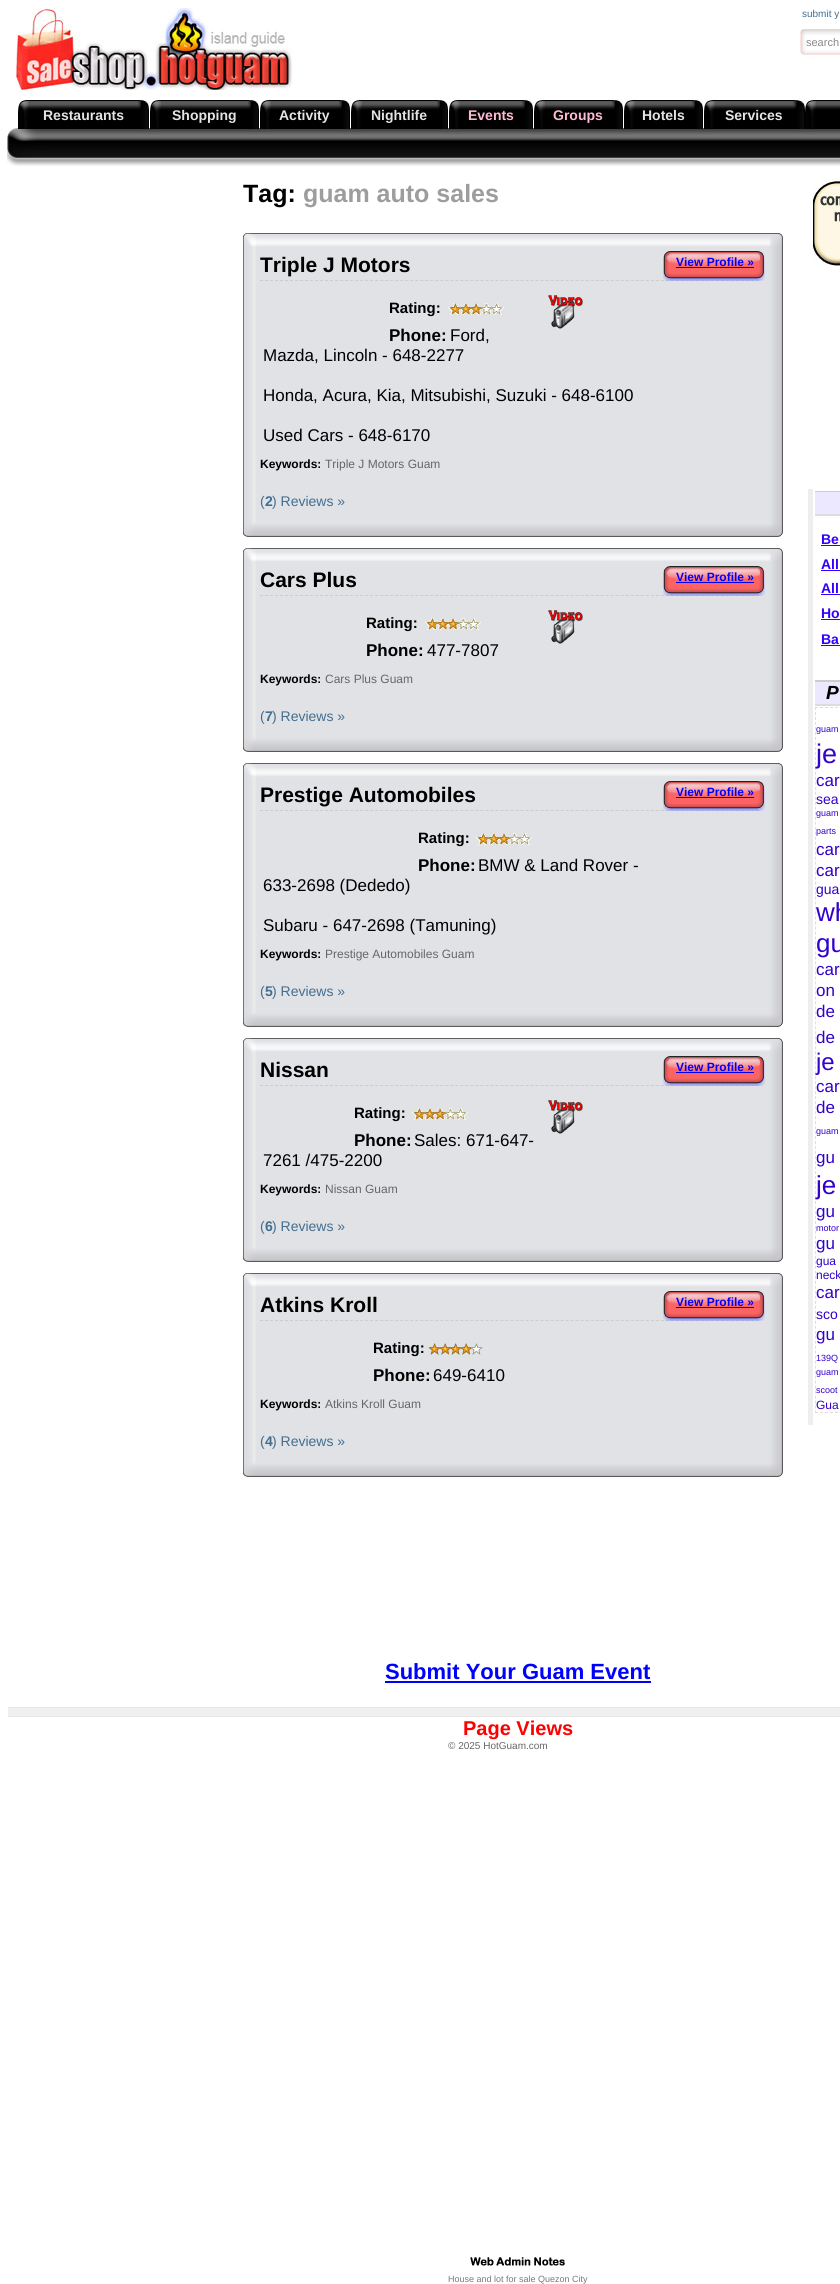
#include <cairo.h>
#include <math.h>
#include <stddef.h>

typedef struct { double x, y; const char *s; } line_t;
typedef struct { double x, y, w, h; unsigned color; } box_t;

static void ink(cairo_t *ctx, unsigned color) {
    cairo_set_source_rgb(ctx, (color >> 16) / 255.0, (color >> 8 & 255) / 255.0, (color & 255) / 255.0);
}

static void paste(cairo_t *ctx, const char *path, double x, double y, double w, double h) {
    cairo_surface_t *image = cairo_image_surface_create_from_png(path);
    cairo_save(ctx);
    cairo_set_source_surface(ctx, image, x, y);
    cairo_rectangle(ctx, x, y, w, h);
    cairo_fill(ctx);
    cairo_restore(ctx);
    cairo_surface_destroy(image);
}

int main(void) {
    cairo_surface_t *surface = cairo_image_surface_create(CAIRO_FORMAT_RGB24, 840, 2284);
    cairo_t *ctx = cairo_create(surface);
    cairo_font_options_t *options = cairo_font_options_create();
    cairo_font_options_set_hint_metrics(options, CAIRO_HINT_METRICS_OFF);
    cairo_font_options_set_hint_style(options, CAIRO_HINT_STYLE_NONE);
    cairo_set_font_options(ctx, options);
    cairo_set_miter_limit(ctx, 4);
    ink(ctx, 0xFFFFFF);
    cairo_paint(ctx);
    paste(ctx, "media/1.png", 16, 8, 276, 82);
    cairo_select_font_face(ctx, "Liberation Sans", CAIRO_FONT_SLANT_NORMAL, CAIRO_FONT_WEIGHT_NORMAL);
    cairo_set_font_size(ctx, 10);
    ink(ctx, 0x416E90);
    cairo_move_to(ctx, 802, 17);
    cairo_show_text(ctx, "submit y");
    paste(ctx, "media/2.png", 800, 29, 40, 26);
    cairo_set_font_size(ctx, 11);
    ink(ctx, 0x888888);
    cairo_move_to(ctx, 806, 46);
    cairo_show_text(ctx, "search");
    paste(ctx, "media/3.png", 7, 128, 833, 38);
    paste(ctx, "media/4.png", 18, 100, 11, 29);
    paste(ctx, "media/5.png", 29, 100, 109, 29);
    cairo_select_font_face(ctx, "Liberation Sans", CAIRO_FONT_SLANT_NORMAL, CAIRO_FONT_WEIGHT_BOLD);
    cairo_set_font_size(ctx, 14);
    ink(ctx, 0xE4E4E4);
    cairo_move_to(ctx, 43, 120);
    cairo_show_text(ctx, "Restaurants");
    paste(ctx, "media/6.png", 138, 100, 11, 29);
    paste(ctx, "media/4.png", 150, 100, 11, 29);
    paste(ctx, "media/7.png", 161, 100, 87, 29);
    cairo_move_to(ctx, 172, 120);
    cairo_show_text(ctx, "Shopping");
    paste(ctx, "media/6.png", 248, 100, 11, 29);
    paste(ctx, "media/4.png", 260, 100, 11, 29);
    paste(ctx, "media/8.png", 271, 100, 68, 29);
    cairo_move_to(ctx, 279, 120);
    cairo_show_text(ctx, "Activity");
    paste(ctx, "media/6.png", 339, 100, 11, 29);
    paste(ctx, "media/4.png", 351, 100, 11, 29);
    paste(ctx, "media/9.png", 362, 100, 75, 29);
    cairo_move_to(ctx, 371, 120);
    cairo_show_text(ctx, "Nightlife");
    paste(ctx, "media/6.png", 437, 100, 11, 29);
    paste(ctx, "media/4.png", 449, 100, 11, 29);
    paste(ctx, "media/10.png", 460, 100, 62, 29);
    ink(ctx, 0xFFB9D5);
    cairo_move_to(ctx, 468, 120);
    cairo_show_text(ctx, "Events");
    paste(ctx, "media/6.png", 522, 100, 11, 29);
    paste(ctx, "media/4.png", 534, 100, 11, 29);
    paste(ctx, "media/11.png", 545, 100, 67, 29);
    cairo_move_to(ctx, 553, 120);
    cairo_show_text(ctx, "Groups");
    paste(ctx, "media/6.png", 612, 100, 11, 29);
    paste(ctx, "media/4.png", 624, 100, 11, 29);
    paste(ctx, "media/12.png", 635, 100, 57, 29);
    ink(ctx, 0xE4E4E4);
    cairo_move_to(ctx, 642, 120);
    cairo_show_text(ctx, "Hotels");
    paste(ctx, "media/6.png", 692, 100, 11, 29);
    paste(ctx, "media/4.png", 704, 100, 11, 29);
    paste(ctx, "media/13.png", 715, 100, 78, 29);
    cairo_move_to(ctx, 725, 120);
    cairo_show_text(ctx, "Services");
    paste(ctx, "media/14.png", 793, 100, 12, 29);
    paste(ctx, "media/4.png", 805, 100, 11, 29);
    paste(ctx, "media/15.png", 816, 100, 24, 29);
    cairo_set_font_size(ctx, 25);
    ink(ctx, 0x000000);
    cairo_move_to(ctx, 243, 202);
    cairo_show_text(ctx, "Tag:");
    ink(ctx, 0x9D9D9D);
    cairo_move_to(ctx, 303, 202);
    cairo_show_text(ctx, "guam auto sales");
    paste(ctx, "media/16.png", 243, 233, 17, 17);
    paste(ctx, "media/17.png", 260, 233, 506, 17);
    paste(ctx, "media/18.png", 766, 233, 17, 17);
    paste(ctx, "media/19.png", 243, 250, 17, 270);
    ink(ctx, 0xE1E2E5);
    cairo_rectangle(ctx, 260, 250, 506, 270);
    cairo_fill(ctx);
    cairo_new_path(ctx);
    cairo_move_to(ctx, 260, 280.5);
    cairo_line_to(ctx, 759, 280.5);
    ink(ctx, 0xCCCCCC);
    cairo_set_line_width(ctx, 1);
    cairo_set_dash(ctx, (double[]){3, 2.01}, 2, 0);
    cairo_stroke(ctx);
    cairo_set_font_size(ctx, 21);
    ink(ctx, 0x000000);
    cairo_move_to(ctx, 260, 272);
    cairo_show_text(ctx, "Triple J Motors");
    paste(ctx, "media/20.png", 663, 251, 102, 30);
    cairo_set_font_size(ctx, 12);
    ink(ctx, 0x0000FF);
    cairo_move_to(ctx, 676, 266);
    cairo_show_text(ctx, "View Profile »");
    cairo_rectangle(ctx, 676, 267, 78, 1);
    cairo_fill(ctx);
    cairo_set_font_size(ctx, 15);
    ink(ctx, 0x000000);
    cairo_move_to(ctx, 389, 313);
    cairo_show_text(ctx, "Rating:");
    paste(ctx, "media/21.png", 448, 303, 56, 12);
    paste(ctx, "media/22.png", 548, 295, 35, 34);
    cairo_set_font_size(ctx, 17);
    cairo_move_to(ctx, 389, 341);
    cairo_show_text(ctx, "Phone:");
    cairo_select_font_face(ctx, "Liberation Sans", CAIRO_FONT_SLANT_NORMAL, CAIRO_FONT_WEIGHT_NORMAL);
    {
        static const line_t items[] = {
            {450, 341, "Ford,"},
            {263, 361, "Mazda, Lincoln - 648-2277"},
            {263, 401, "Honda, Acura, Kia, Mitsubishi, Suzuki - 648-6100"},
            {263, 441, "Used Cars - 648-6170"},
        };
        for (size_t i = 0; i < sizeof items / sizeof *items; i++) {
            cairo_move_to(ctx, items[i].x, items[i].y);
            cairo_show_text(ctx, items[i].s);
        }
    }
    cairo_select_font_face(ctx, "Liberation Sans", CAIRO_FONT_SLANT_NORMAL, CAIRO_FONT_WEIGHT_BOLD);
    cairo_set_font_size(ctx, 12);
    cairo_move_to(ctx, 260, 468);
    cairo_show_text(ctx, "Keywords:");
    cairo_select_font_face(ctx, "Liberation Sans", CAIRO_FONT_SLANT_NORMAL, CAIRO_FONT_WEIGHT_NORMAL);
    ink(ctx, 0x666666);
    cairo_move_to(ctx, 325, 468);
    cairo_show_text(ctx, "Triple J Motors Guam");
    cairo_set_font_size(ctx, 14);
    ink(ctx, 0x416E90);
    cairo_move_to(ctx, 260, 506);
    cairo_show_text(ctx, "(");
    cairo_select_font_face(ctx, "Liberation Sans", CAIRO_FONT_SLANT_NORMAL, CAIRO_FONT_WEIGHT_BOLD);
    cairo_move_to(ctx, 265, 506);
    cairo_show_text(ctx, "2");
    cairo_select_font_face(ctx, "Liberation Sans", CAIRO_FONT_SLANT_NORMAL, CAIRO_FONT_WEIGHT_NORMAL);
    cairo_move_to(ctx, 272, 506);
    cairo_show_text(ctx, ") Reviews »");
    paste(ctx, "media/23.png", 766, 250, 17, 270);
    paste(ctx, "media/24.png", 243, 520, 17, 17);
    paste(ctx, "media/25.png", 260, 520, 506, 17);
    paste(ctx, "media/26.png", 766, 520, 17, 17);
    paste(ctx, "media/16.png", 243, 548, 17, 17);
    paste(ctx, "media/17.png", 260, 548, 506, 17);
    paste(ctx, "media/18.png", 766, 548, 17, 17);
    paste(ctx, "media/27.png", 243, 565, 17, 170);
    ink(ctx, 0xE1E2E5);
    cairo_rectangle(ctx, 260, 565, 506, 170);
    cairo_fill(ctx);
    cairo_new_path(ctx);
    cairo_move_to(ctx, 260, 595.5);
    cairo_line_to(ctx, 759, 595.5);
    ink(ctx, 0xCCCCCC);
    cairo_stroke(ctx);
    cairo_select_font_face(ctx, "Liberation Sans", CAIRO_FONT_SLANT_NORMAL, CAIRO_FONT_WEIGHT_BOLD);
    cairo_set_font_size(ctx, 21);
    ink(ctx, 0x000000);
    cairo_move_to(ctx, 260, 587);
    cairo_show_text(ctx, "Cars Plus");
    paste(ctx, "media/20.png", 663, 566, 102, 30);
    cairo_set_font_size(ctx, 12);
    ink(ctx, 0x0000FF);
    cairo_move_to(ctx, 676, 581);
    cairo_show_text(ctx, "View Profile »");
    cairo_rectangle(ctx, 676, 582, 78, 1);
    cairo_fill(ctx);
    cairo_set_font_size(ctx, 15);
    ink(ctx, 0x000000);
    cairo_move_to(ctx, 366, 628);
    cairo_show_text(ctx, "Rating:");
    paste(ctx, "media/21.png", 425, 618, 56, 12);
    paste(ctx, "media/22.png", 548, 610, 35, 34);
    cairo_set_font_size(ctx, 17);
    cairo_move_to(ctx, 366, 656);
    cairo_show_text(ctx, "Phone:");
    cairo_select_font_face(ctx, "Liberation Sans", CAIRO_FONT_SLANT_NORMAL, CAIRO_FONT_WEIGHT_NORMAL);
    cairo_move_to(ctx, 427, 656);
    cairo_show_text(ctx, "477-7807");
    cairo_select_font_face(ctx, "Liberation Sans", CAIRO_FONT_SLANT_NORMAL, CAIRO_FONT_WEIGHT_BOLD);
    cairo_set_font_size(ctx, 12);
    cairo_move_to(ctx, 260, 683);
    cairo_show_text(ctx, "Keywords:");
    cairo_select_font_face(ctx, "Liberation Sans", CAIRO_FONT_SLANT_NORMAL, CAIRO_FONT_WEIGHT_NORMAL);
    ink(ctx, 0x666666);
    cairo_move_to(ctx, 325, 683);
    cairo_show_text(ctx, "Cars Plus Guam");
    cairo_set_font_size(ctx, 14);
    ink(ctx, 0x416E90);
    cairo_move_to(ctx, 260, 721);
    cairo_show_text(ctx, "(");
    cairo_select_font_face(ctx, "Liberation Sans", CAIRO_FONT_SLANT_NORMAL, CAIRO_FONT_WEIGHT_BOLD);
    cairo_move_to(ctx, 265, 721);
    cairo_show_text(ctx, "7");
    cairo_select_font_face(ctx, "Liberation Sans", CAIRO_FONT_SLANT_NORMAL, CAIRO_FONT_WEIGHT_NORMAL);
    cairo_move_to(ctx, 272, 721);
    cairo_show_text(ctx, ") Reviews »");
    paste(ctx, "media/28.png", 766, 565, 17, 170);
    paste(ctx, "media/24.png", 243, 735, 17, 17);
    paste(ctx, "media/25.png", 260, 735, 506, 17);
    paste(ctx, "media/26.png", 766, 735, 17, 17);
    paste(ctx, "media/16.png", 243, 763, 17, 17);
    paste(ctx, "media/17.png", 260, 763, 506, 17);
    paste(ctx, "media/18.png", 766, 763, 17, 17);
    paste(ctx, "media/29.png", 243, 780, 17, 230);
    ink(ctx, 0xE1E2E5);
    cairo_rectangle(ctx, 260, 780, 506, 230);
    cairo_fill(ctx);
    cairo_new_path(ctx);
    cairo_move_to(ctx, 260, 810.5);
    cairo_line_to(ctx, 759, 810.5);
    ink(ctx, 0xCCCCCC);
    cairo_stroke(ctx);
    cairo_select_font_face(ctx, "Liberation Sans", CAIRO_FONT_SLANT_NORMAL, CAIRO_FONT_WEIGHT_BOLD);
    cairo_set_font_size(ctx, 21);
    ink(ctx, 0x000000);
    cairo_move_to(ctx, 260, 802);
    cairo_show_text(ctx, "Prestige Automobiles");
    paste(ctx, "media/20.png", 663, 781, 102, 30);
    cairo_set_font_size(ctx, 12);
    ink(ctx, 0x0000FF);
    cairo_move_to(ctx, 676, 796);
    cairo_show_text(ctx, "View Profile »");
    cairo_rectangle(ctx, 676, 797, 78, 1);
    cairo_fill(ctx);
    cairo_set_font_size(ctx, 15);
    ink(ctx, 0x000000);
    cairo_move_to(ctx, 418, 843);
    cairo_show_text(ctx, "Rating:");
    paste(ctx, "media/21.png", 476, 833, 56, 12);
    cairo_set_font_size(ctx, 17);
    cairo_move_to(ctx, 418, 871);
    cairo_show_text(ctx, "Phone:");
    cairo_select_font_face(ctx, "Liberation Sans", CAIRO_FONT_SLANT_NORMAL, CAIRO_FONT_WEIGHT_NORMAL);
    {
        static const line_t items[] = {
            {478, 871, "BMW & Land Rover -"},
            {263, 891, "633-2698 (Dededo)"},
            {263, 931, "Subaru - 647-2698 (Tamuning)"},
        };
        for (size_t i = 0; i < sizeof items / sizeof *items; i++) {
            cairo_move_to(ctx, items[i].x, items[i].y);
            cairo_show_text(ctx, items[i].s);
        }
    }
    cairo_select_font_face(ctx, "Liberation Sans", CAIRO_FONT_SLANT_NORMAL, CAIRO_FONT_WEIGHT_BOLD);
    cairo_set_font_size(ctx, 12);
    cairo_move_to(ctx, 260, 958);
    cairo_show_text(ctx, "Keywords:");
    cairo_select_font_face(ctx, "Liberation Sans", CAIRO_FONT_SLANT_NORMAL, CAIRO_FONT_WEIGHT_NORMAL);
    ink(ctx, 0x666666);
    cairo_move_to(ctx, 325, 958);
    cairo_show_text(ctx, "Prestige Automobiles Guam");
    cairo_set_font_size(ctx, 14);
    ink(ctx, 0x416E90);
    cairo_move_to(ctx, 260, 996);
    cairo_show_text(ctx, "(");
    cairo_select_font_face(ctx, "Liberation Sans", CAIRO_FONT_SLANT_NORMAL, CAIRO_FONT_WEIGHT_BOLD);
    cairo_move_to(ctx, 265, 996);
    cairo_show_text(ctx, "5");
    cairo_select_font_face(ctx, "Liberation Sans", CAIRO_FONT_SLANT_NORMAL, CAIRO_FONT_WEIGHT_NORMAL);
    cairo_move_to(ctx, 272, 996);
    cairo_show_text(ctx, ") Reviews »");
    paste(ctx, "media/30.png", 766, 780, 17, 230);
    paste(ctx, "media/24.png", 243, 1010, 17, 17);
    paste(ctx, "media/25.png", 260, 1010, 506, 17);
    paste(ctx, "media/26.png", 766, 1010, 17, 17);
    paste(ctx, "media/16.png", 243, 1038, 17, 17);
    paste(ctx, "media/17.png", 260, 1038, 506, 17);
    paste(ctx, "media/18.png", 766, 1038, 17, 17);
    paste(ctx, "media/31.png", 243, 1055, 17, 190);
    ink(ctx, 0xE1E2E5);
    cairo_rectangle(ctx, 260, 1055, 506, 190);
    cairo_fill(ctx);
    cairo_new_path(ctx);
    cairo_move_to(ctx, 260, 1085.5);
    cairo_line_to(ctx, 759, 1085.5);
    ink(ctx, 0xCCCCCC);
    cairo_stroke(ctx);
    cairo_select_font_face(ctx, "Liberation Sans", CAIRO_FONT_SLANT_NORMAL, CAIRO_FONT_WEIGHT_BOLD);
    cairo_set_font_size(ctx, 21);
    ink(ctx, 0x000000);
    cairo_move_to(ctx, 260, 1077);
    cairo_show_text(ctx, "Nissan");
    paste(ctx, "media/20.png", 663, 1056, 102, 30);
    cairo_set_font_size(ctx, 12);
    ink(ctx, 0x0000FF);
    cairo_move_to(ctx, 676, 1071);
    cairo_show_text(ctx, "View Profile »");
    cairo_rectangle(ctx, 676, 1072, 78, 1);
    cairo_fill(ctx);
    cairo_set_font_size(ctx, 15);
    ink(ctx, 0x000000);
    cairo_move_to(ctx, 354, 1118);
    cairo_show_text(ctx, "Rating:");
    paste(ctx, "media/21.png", 412, 1108, 56, 12);
    paste(ctx, "media/22.png", 548, 1100, 35, 34);
    cairo_set_font_size(ctx, 17);
    cairo_move_to(ctx, 354, 1146);
    cairo_show_text(ctx, "Phone:");
    cairo_select_font_face(ctx, "Liberation Sans", CAIRO_FONT_SLANT_NORMAL, CAIRO_FONT_WEIGHT_NORMAL);
    cairo_move_to(ctx, 414, 1146);
    cairo_show_text(ctx, "Sales: 671-647-");
    cairo_move_to(ctx, 263, 1166);
    cairo_show_text(ctx, "7261 /475-2200");
    cairo_select_font_face(ctx, "Liberation Sans", CAIRO_FONT_SLANT_NORMAL, CAIRO_FONT_WEIGHT_BOLD);
    cairo_set_font_size(ctx, 12);
    cairo_move_to(ctx, 260, 1193);
    cairo_show_text(ctx, "Keywords:");
    cairo_select_font_face(ctx, "Liberation Sans", CAIRO_FONT_SLANT_NORMAL, CAIRO_FONT_WEIGHT_NORMAL);
    ink(ctx, 0x666666);
    cairo_move_to(ctx, 325, 1193);
    cairo_show_text(ctx, "Nissan Guam");
    cairo_set_font_size(ctx, 14);
    ink(ctx, 0x416E90);
    cairo_move_to(ctx, 260, 1231);
    cairo_show_text(ctx, "(");
    cairo_select_font_face(ctx, "Liberation Sans", CAIRO_FONT_SLANT_NORMAL, CAIRO_FONT_WEIGHT_BOLD);
    cairo_move_to(ctx, 265, 1231);
    cairo_show_text(ctx, "6");
    cairo_select_font_face(ctx, "Liberation Sans", CAIRO_FONT_SLANT_NORMAL, CAIRO_FONT_WEIGHT_NORMAL);
    cairo_move_to(ctx, 272, 1231);
    cairo_show_text(ctx, ") Reviews »");
    paste(ctx, "media/32.png", 766, 1055, 17, 190);
    paste(ctx, "media/24.png", 243, 1245, 17, 17);
    paste(ctx, "media/25.png", 260, 1245, 506, 17);
    paste(ctx, "media/26.png", 766, 1245, 17, 17);
    paste(ctx, "media/16.png", 243, 1273, 17, 17);
    paste(ctx, "media/17.png", 260, 1273, 506, 17);
    paste(ctx, "media/18.png", 766, 1273, 17, 17);
    paste(ctx, "media/27.png", 243, 1290, 17, 170);
    ink(ctx, 0xE1E2E5);
    cairo_rectangle(ctx, 260, 1290, 506, 170);
    cairo_fill(ctx);
    cairo_new_path(ctx);
    cairo_move_to(ctx, 260, 1320.5);
    cairo_line_to(ctx, 759, 1320.5);
    ink(ctx, 0xCCCCCC);
    cairo_stroke(ctx);
    cairo_select_font_face(ctx, "Liberation Sans", CAIRO_FONT_SLANT_NORMAL, CAIRO_FONT_WEIGHT_BOLD);
    cairo_set_font_size(ctx, 21);
    ink(ctx, 0x000000);
    cairo_move_to(ctx, 260, 1312);
    cairo_show_text(ctx, "Atkins Kroll");
    paste(ctx, "media/20.png", 663, 1291, 102, 30);
    cairo_set_font_size(ctx, 12);
    ink(ctx, 0x0000FF);
    cairo_move_to(ctx, 676, 1306);
    cairo_show_text(ctx, "View Profile »");
    cairo_rectangle(ctx, 676, 1307, 78, 1);
    cairo_fill(ctx);
    cairo_set_font_size(ctx, 15);
    ink(ctx, 0x000000);
    cairo_move_to(ctx, 373, 1353);
    cairo_show_text(ctx, "Rating:");
    paste(ctx, "media/33.png", 428, 1343, 55, 12);
    cairo_set_font_size(ctx, 17);
    cairo_move_to(ctx, 373, 1381);
    cairo_show_text(ctx, "Phone:");
    cairo_select_font_face(ctx, "Liberation Sans", CAIRO_FONT_SLANT_NORMAL, CAIRO_FONT_WEIGHT_NORMAL);
    cairo_move_to(ctx, 433, 1381);
    cairo_show_text(ctx, "649-6410");
    cairo_select_font_face(ctx, "Liberation Sans", CAIRO_FONT_SLANT_NORMAL, CAIRO_FONT_WEIGHT_BOLD);
    cairo_set_font_size(ctx, 12);
    cairo_move_to(ctx, 260, 1408);
    cairo_show_text(ctx, "Keywords:");
    cairo_select_font_face(ctx, "Liberation Sans", CAIRO_FONT_SLANT_NORMAL, CAIRO_FONT_WEIGHT_NORMAL);
    ink(ctx, 0x666666);
    cairo_move_to(ctx, 325, 1408);
    cairo_show_text(ctx, "Atkins Kroll Guam");
    cairo_set_font_size(ctx, 14);
    ink(ctx, 0x416E90);
    cairo_move_to(ctx, 260, 1446);
    cairo_show_text(ctx, "(");
    cairo_select_font_face(ctx, "Liberation Sans", CAIRO_FONT_SLANT_NORMAL, CAIRO_FONT_WEIGHT_BOLD);
    cairo_move_to(ctx, 265, 1446);
    cairo_show_text(ctx, "4");
    cairo_select_font_face(ctx, "Liberation Sans", CAIRO_FONT_SLANT_NORMAL, CAIRO_FONT_WEIGHT_NORMAL);
    cairo_move_to(ctx, 272, 1446);
    cairo_show_text(ctx, ") Reviews »");
    paste(ctx, "media/28.png", 766, 1290, 17, 170);
    paste(ctx, "media/24.png", 243, 1460, 17, 17);
    paste(ctx, "media/25.png", 260, 1460, 506, 17);
    paste(ctx, "media/26.png", 766, 1460, 17, 17);
    paste(ctx, "media/34.png", 813, 179, 27, 312);
    {
        static const box_t items[] = {
            {808, 489, 5, 936, 0xEEEEEE},
            {815, 492, 25, 22, 0xECE8FF},
            {815, 491, 25, 1, 0xCCCCCC},
            {815, 514, 25, 2, 0xDDDDDD},
        };
        for (size_t i = 0; i < sizeof items / sizeof *items; i++) {
            ink(ctx, items[i].color);
            cairo_rectangle(ctx, items[i].x, items[i].y, items[i].w, items[i].h);
            cairo_fill(ctx);
        }
    }
    cairo_select_font_face(ctx, "Liberation Sans", CAIRO_FONT_SLANT_NORMAL, CAIRO_FONT_WEIGHT_BOLD);
    ink(ctx, 0x3300FF);
    cairo_move_to(ctx, 821, 544);
    cairo_show_text(ctx, "Be");
    cairo_rectangle(ctx, 821, 545, 19, 1);
    cairo_fill(ctx);
    cairo_move_to(ctx, 821, 569);
    cairo_show_text(ctx, "All");
    cairo_rectangle(ctx, 821, 570, 19, 1);
    cairo_fill(ctx);
    cairo_move_to(ctx, 821, 593);
    cairo_show_text(ctx, "All");
    cairo_rectangle(ctx, 821, 594, 19, 1);
    cairo_fill(ctx);
    cairo_move_to(ctx, 821, 618);
    cairo_show_text(ctx, "Ho");
    cairo_rectangle(ctx, 821, 619, 19, 1);
    cairo_fill(ctx);
    cairo_move_to(ctx, 821, 644);
    cairo_show_text(ctx, "Ba");
    {
        static const box_t items[] = {
            {821, 645, 19, 1, 0x3300FF},
            {815, 682, 25, 22, 0xECE8FF},
            {815, 680, 25, 2, 0xCCCCCC},
            {815, 704, 25, 2, 0xDDDDDD},
        };
        for (size_t i = 0; i < sizeof items / sizeof *items; i++) {
            ink(ctx, items[i].color);
            cairo_rectangle(ctx, items[i].x, items[i].y, items[i].w, items[i].h);
            cairo_fill(ctx);
        }
    }
    cairo_select_font_face(ctx, "Liberation Sans", CAIRO_FONT_SLANT_ITALIC, CAIRO_FONT_WEIGHT_BOLD);
    cairo_set_font_size(ctx, 19);
    ink(ctx, 0x000000);
    cairo_move_to(ctx, 826, 699);
    cairo_show_text(ctx, "P");
    cairo_new_path(ctx);
    cairo_move_to(ctx, 815, 707.5);
    cairo_line_to(ctx, 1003, 707.5);
    ink(ctx, 0xDDDDDD);
    cairo_set_dash(ctx, (double[]){3, 2}, 2, 0);
    cairo_stroke(ctx);
    cairo_new_path(ctx);
    cairo_move_to(ctx, 815, 1412.5);
    cairo_line_to(ctx, 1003, 1412.5);
    cairo_stroke(ctx);
    cairo_new_path(ctx);
    cairo_move_to(ctx, 815.5, 707);
    cairo_line_to(ctx, 815.5, 1413);
    cairo_set_dash(ctx, (double[]){3, 1.99}, 2, 0);
    cairo_stroke(ctx);
    cairo_select_font_face(ctx, "Liberation Sans", CAIRO_FONT_SLANT_NORMAL, CAIRO_FONT_WEIGHT_NORMAL);
    cairo_set_font_size(ctx, 9);
    ink(ctx, 0x3300CC);
    cairo_move_to(ctx, 816, 732);
    cairo_show_text(ctx, "guam");
    cairo_set_font_size(ctx, 27);
    cairo_move_to(ctx, 816, 763);
    cairo_show_text(ctx, "je");
    cairo_set_font_size(ctx, 17);
    cairo_move_to(ctx, 816, 786);
    cairo_show_text(ctx, "car");
    cairo_set_font_size(ctx, 14);
    cairo_move_to(ctx, 816, 804);
    cairo_show_text(ctx, "sea");
    cairo_set_font_size(ctx, 9);
    cairo_move_to(ctx, 816, 816);
    cairo_show_text(ctx, "guam");
    cairo_move_to(ctx, 816, 834);
    cairo_show_text(ctx, "parts");
    cairo_set_font_size(ctx, 17);
    cairo_move_to(ctx, 816, 855);
    cairo_show_text(ctx, "car");
    cairo_move_to(ctx, 816, 876);
    cairo_show_text(ctx, "car");
    cairo_set_font_size(ctx, 14);
    cairo_move_to(ctx, 816, 894);
    cairo_show_text(ctx, "gua");
    cairo_set_font_size(ctx, 26);
    cairo_move_to(ctx, 816, 921);
    cairo_show_text(ctx, "wh");
    cairo_move_to(ctx, 816, 952);
    cairo_show_text(ctx, "gu");
    cairo_set_font_size(ctx, 17);
    {
        static const line_t items[] = {
            {816, 975, "car"},
            {816, 996, "on"},
            {816, 1017, "de"},
            {816, 1043, "de"},
        };
        for (size_t i = 0; i < sizeof items / sizeof *items; i++) {
            cairo_move_to(ctx, items[i].x, items[i].y);
            cairo_show_text(ctx, items[i].s);
        }
    }
    cairo_set_font_size(ctx, 24);
    cairo_move_to(ctx, 816, 1070);
    cairo_show_text(ctx, "je");
    cairo_set_font_size(ctx, 17);
    cairo_move_to(ctx, 816, 1092);
    cairo_show_text(ctx, "car");
    cairo_move_to(ctx, 816, 1113);
    cairo_show_text(ctx, "de");
    cairo_set_font_size(ctx, 9);
    cairo_move_to(ctx, 816, 1134);
    cairo_show_text(ctx, "guam");
    cairo_set_font_size(ctx, 17);
    cairo_move_to(ctx, 816, 1163);
    cairo_show_text(ctx, "gu");
    cairo_set_font_size(ctx, 26);
    cairo_move_to(ctx, 816, 1194);
    cairo_show_text(ctx, "je");
    cairo_set_font_size(ctx, 17);
    cairo_move_to(ctx, 816, 1217);
    cairo_show_text(ctx, "gu");
    cairo_set_font_size(ctx, 9);
    cairo_move_to(ctx, 816, 1231);
    cairo_show_text(ctx, "motor");
    cairo_set_font_size(ctx, 17);
    cairo_move_to(ctx, 816, 1249);
    cairo_show_text(ctx, "gu");
    cairo_set_font_size(ctx, 12);
    cairo_move_to(ctx, 816, 1265);
    cairo_show_text(ctx, "gua");
    cairo_move_to(ctx, 816, 1279);
    cairo_show_text(ctx, "neck");
    cairo_set_font_size(ctx, 17);
    cairo_move_to(ctx, 816, 1298);
    cairo_show_text(ctx, "car");
    cairo_set_font_size(ctx, 14);
    cairo_move_to(ctx, 816, 1319);
    cairo_show_text(ctx, "sco");
    cairo_set_font_size(ctx, 17);
    cairo_move_to(ctx, 816, 1340);
    cairo_show_text(ctx, "gu");
    cairo_set_font_size(ctx, 9);
    {
        static const line_t items[] = {
            {816, 1361, "139Q"},
            {816, 1375, "guam"},
            {816, 1393, "scoot"},
        };
        for (size_t i = 0; i < sizeof items / sizeof *items; i++) {
            cairo_move_to(ctx, items[i].x, items[i].y);
            cairo_show_text(ctx, items[i].s);
        }
    }
    cairo_set_font_size(ctx, 12);
    cairo_move_to(ctx, 816, 1409);
    cairo_show_text(ctx, "Gua");
    cairo_select_font_face(ctx, "Liberation Sans", CAIRO_FONT_SLANT_NORMAL, CAIRO_FONT_WEIGHT_BOLD);
    cairo_set_font_size(ctx, 22);
    ink(ctx, 0x0000FF);
    cairo_move_to(ctx, 385, 1679);
    cairo_show_text(ctx, "Submit Your Guam Event");
    {
        static const box_t items[] = {
            {385, 1681, 266, 2, 0x0000FF},
            {8, 1708, 832, 8, 0xF0F0F0},
            {8, 1707, 832, 1, 0xE6E6E6},
            {8, 1716, 832, 1, 0xE6E6E6},
        };
        for (size_t i = 0; i < sizeof items / sizeof *items; i++) {
            ink(ctx, items[i].color);
            cairo_rectangle(ctx, items[i].x, items[i].y, items[i].w, items[i].h);
            cairo_fill(ctx);
        }
    }
    cairo_set_font_size(ctx, 20);
    ink(ctx, 0xFF0000);
    cairo_move_to(ctx, 463, 1735);
    cairo_show_text(ctx, "Page Views");
    cairo_select_font_face(ctx, "Liberation Sans", CAIRO_FONT_SLANT_NORMAL, CAIRO_FONT_WEIGHT_NORMAL);
    cairo_set_font_size(ctx, 10);
    ink(ctx, 0x666666);
    cairo_move_to(ctx, 448, 1749);
    cairo_show_text(ctx, "© 2025 HotGuam.com");
    paste(ctx, "media/35.png", 470, 2257, 95, 9);
    cairo_set_font_size(ctx, 9);
    ink(ctx, 0x797979);
    cairo_move_to(ctx, 448, 2282);
    cairo_show_text(ctx, "House and lot for sale Quezon City");
    cairo_surface_write_to_png(surface, "image.png");
    cairo_font_options_destroy(options);
    cairo_destroy(ctx);
    cairo_surface_destroy(surface);
    return 0;
}
